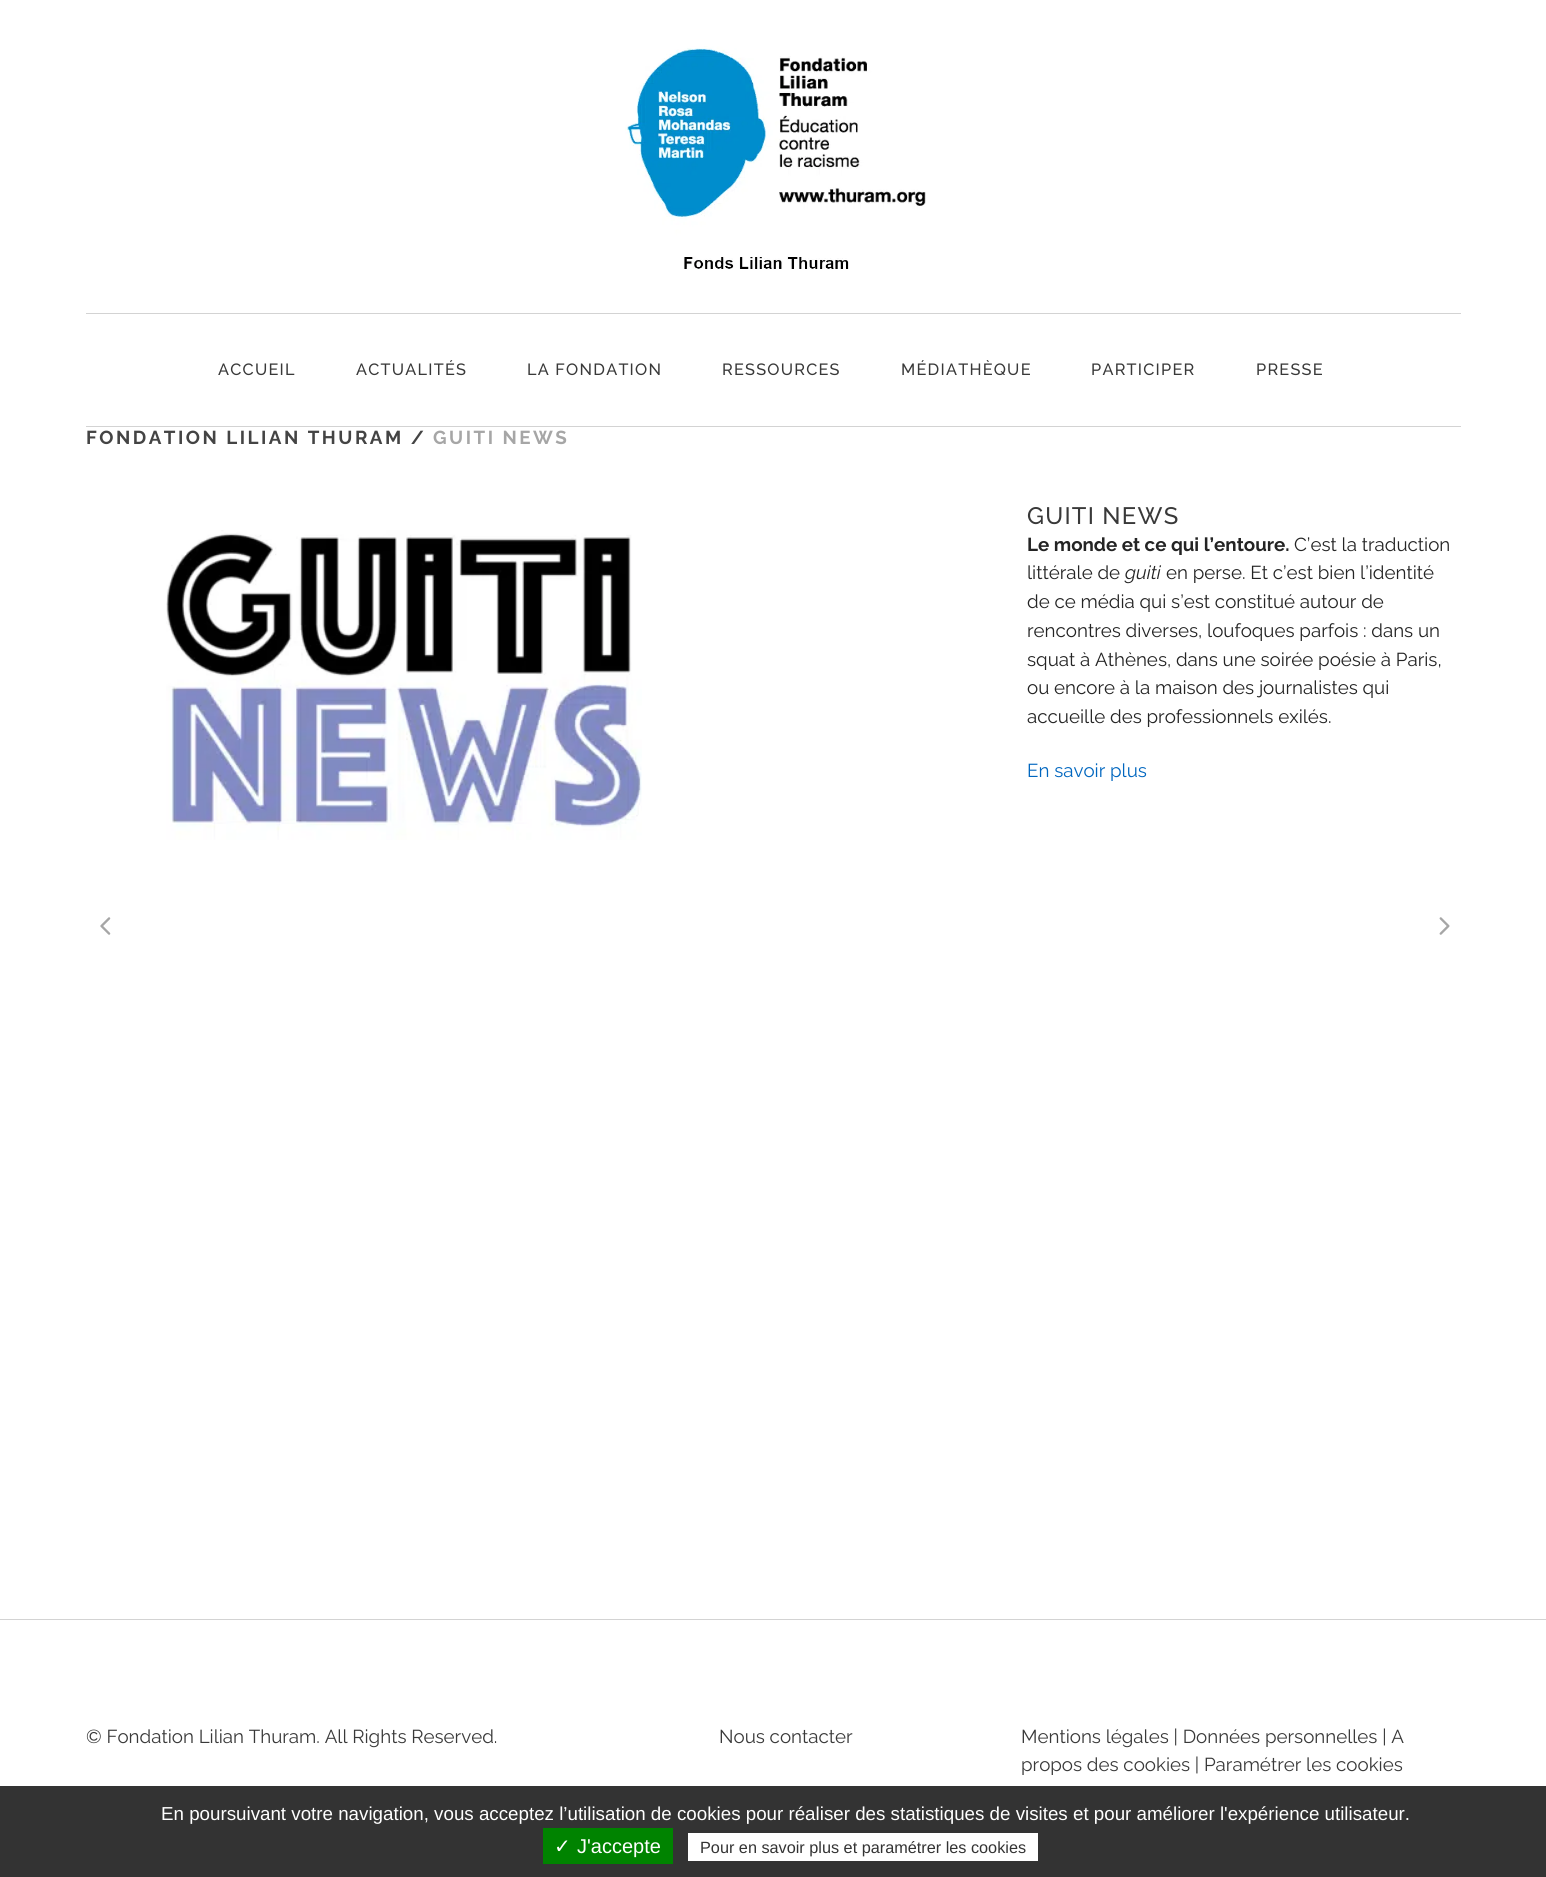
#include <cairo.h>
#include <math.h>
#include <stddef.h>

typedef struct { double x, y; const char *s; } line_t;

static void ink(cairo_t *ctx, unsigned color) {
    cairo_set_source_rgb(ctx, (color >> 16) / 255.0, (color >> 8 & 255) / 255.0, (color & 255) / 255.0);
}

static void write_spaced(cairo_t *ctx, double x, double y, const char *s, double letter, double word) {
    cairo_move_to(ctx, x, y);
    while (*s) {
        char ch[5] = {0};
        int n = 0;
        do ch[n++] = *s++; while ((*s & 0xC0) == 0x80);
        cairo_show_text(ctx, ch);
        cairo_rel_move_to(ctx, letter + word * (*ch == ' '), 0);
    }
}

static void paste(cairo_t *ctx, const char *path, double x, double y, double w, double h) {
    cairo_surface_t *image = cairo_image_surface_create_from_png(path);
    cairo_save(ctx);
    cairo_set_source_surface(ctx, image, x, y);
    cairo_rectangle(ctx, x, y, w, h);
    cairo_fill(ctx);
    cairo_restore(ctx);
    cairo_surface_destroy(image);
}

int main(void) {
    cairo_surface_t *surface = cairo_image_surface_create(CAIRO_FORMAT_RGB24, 1546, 1877);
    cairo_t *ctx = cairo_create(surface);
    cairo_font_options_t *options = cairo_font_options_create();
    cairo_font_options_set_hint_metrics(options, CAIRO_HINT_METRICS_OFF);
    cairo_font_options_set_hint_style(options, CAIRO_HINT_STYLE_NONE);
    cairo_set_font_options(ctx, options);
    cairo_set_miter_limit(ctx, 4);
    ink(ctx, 0xFFFFFF);
    cairo_paint(ctx);
    paste(ctx, "media/1.png", 625, 46, 301, 223);
    ink(ctx, 0xD3D3D3);
    cairo_rectangle(ctx, 86, 313, 1375, 1);
    cairo_fill(ctx);
    cairo_rectangle(ctx, 86, 426, 1375, 1);
    cairo_fill(ctx);
    cairo_select_font_face(ctx, "Raleway Medium", CAIRO_FONT_SLANT_NORMAL, CAIRO_FONT_WEIGHT_NORMAL);
    cairo_set_font_size(ctx, 16.25);
    ink(ctx, 0x393939);
    {
        static const line_t items[] = {
            {218, 375, "ACCUEIL"},
            {356, 375, "ACTUALITÉS"},
            {527, 375, "LA FONDATION"},
            {722, 375, "RESSOURCES"},
            {901, 375, "MÉDIATHÈQUE"},
            {1091, 375, "PARTICIPER"},
            {1256, 375, "PRESSE"},
        };
        for (size_t i = 0; i < sizeof items / sizeof *items; i++) {
            write_spaced(ctx, items[i].x, items[i].y, items[i].s, 1.25, 0);
        }
    }
    cairo_select_font_face(ctx, "Raleway", CAIRO_FONT_SLANT_NORMAL, CAIRO_FONT_WEIGHT_BOLD);
    cairo_set_font_size(ctx, 18.75);
    ink(ctx, 0x444444);
    write_spaced(ctx, 86, 444, "FONDATION LILIAN THURAM /", 2.5, 0);
    ink(ctx, 0xA6A6A6);
    write_spaced(ctx, 433, 444, "GUITI NEWS", 2.5, 0);
    paste(ctx, "media/2.png", 166, 530, 476, 310);
    cairo_select_font_face(ctx, "Raleway Medium", CAIRO_FONT_SLANT_NORMAL, CAIRO_FONT_WEIGHT_NORMAL);
    cairo_set_font_size(ctx, 23.75);
    ink(ctx, 0x393939);
    write_spaced(ctx, 1027, 524, "GUITI NEWS", 1.25, 0);
    cairo_select_font_face(ctx, "Raleway", CAIRO_FONT_SLANT_NORMAL, CAIRO_FONT_WEIGHT_BOLD);
    cairo_set_font_size(ctx, 18.75);
    ink(ctx, 0x242424);
    cairo_move_to(ctx, 1027, 551);
    cairo_show_text(ctx, "Le monde et ce qui l’entoure.");
    cairo_select_font_face(ctx, "Raleway", CAIRO_FONT_SLANT_NORMAL, CAIRO_FONT_WEIGHT_NORMAL);
    cairo_move_to(ctx, 1294, 551);
    cairo_show_text(ctx, "C’est la traduction");
    cairo_move_to(ctx, 1027, 579);
    cairo_show_text(ctx, "littérale de");
    cairo_select_font_face(ctx, "Raleway", CAIRO_FONT_SLANT_ITALIC, CAIRO_FONT_WEIGHT_NORMAL);
    cairo_move_to(ctx, 1125, 579);
    cairo_show_text(ctx, "guiti");
    cairo_select_font_face(ctx, "Raleway", CAIRO_FONT_SLANT_NORMAL, CAIRO_FONT_WEIGHT_NORMAL);
    {
        static const line_t items[] = {
            {1166, 579, "en perse. Et c’est bien l’identité"},
            {1027, 608, "de ce média qui s’est constitué autour de"},
            {1027, 637, "rencontres diverses, loufoques parfois : dans un"},
            {1027, 666, "squat à Athènes, dans une soirée poésie à Paris,"},
            {1027, 694, "ou encore à la maison des journalistes qui"},
            {1027, 723, "accueille des professionnels exilés."},
        };
        for (size_t i = 0; i < sizeof items / sizeof *items; i++) {
            cairo_move_to(ctx, items[i].x, items[i].y);
            cairo_show_text(ctx, items[i].s);
        }
    }
    ink(ctx, 0x0066BF);
    cairo_move_to(ctx, 1027, 777);
    cairo_show_text(ctx, "En savoir plus");
    paste(ctx, "media/3.png", 100, 917, 11, 18);
    paste(ctx, "media/4.png", 1439, 917, 11, 18);
    ink(ctx, 0xD3D3D3);
    cairo_rectangle(ctx, 0, 1619, 1546, 1);
    cairo_fill(ctx);
    ink(ctx, 0x393939);
    {
        static const line_t items[] = {
            {86, 1743, "© Fondation Lilian Thuram. All Rights Reserved."},
            {719, 1743, "Nous contacter"},
            {1021, 1743, "Mentions légales | Données personnelles | A"},
            {1021, 1771, "propos des cookies | Paramétrer les cookies"},
        };
        for (size_t i = 0; i < sizeof items / sizeof *items; i++) {
            cairo_move_to(ctx, items[i].x, items[i].y);
            cairo_show_text(ctx, items[i].s);
        }
    }
    ink(ctx, 0x333333);
    cairo_rectangle(ctx, 0, 1786, 1546, 91);
    cairo_fill(ctx);
    cairo_select_font_face(ctx, "Liberation Sans", CAIRO_FONT_SLANT_NORMAL, CAIRO_FONT_WEIGHT_NORMAL);
    ink(ctx, 0xFFFFFF);
    cairo_move_to(ctx, 161, 1820);
    cairo_show_text(ctx, "En poursuivant votre navigation, vous acceptez l’utilisation de cookies pour réaliser des statistiques de visites et pour améliorer l'expérience utilisateur.");
    ink(ctx, 0x008300);
    cairo_rectangle(ctx, 543, 1828, 130, 36);
    cairo_fill(ctx);
    cairo_select_font_face(ctx, "DejaVu Sans", CAIRO_FONT_SLANT_NORMAL, CAIRO_FONT_WEIGHT_NORMAL);
    cairo_set_font_size(ctx, 20);
    ink(ctx, 0xFFFFFF);
    cairo_move_to(ctx, 554, 1853);
    cairo_show_text(ctx, "✓");
    cairo_select_font_face(ctx, "Liberation Sans", CAIRO_FONT_SLANT_NORMAL, CAIRO_FONT_WEIGHT_NORMAL);
    cairo_move_to(ctx, 577, 1853);
    cairo_show_text(ctx, "J'accepte");
    cairo_rectangle(ctx, 688, 1833, 350, 28);
    cairo_fill(ctx);
    cairo_set_font_size(ctx, 16.25);
    ink(ctx, 0x333333);
    cairo_move_to(ctx, 700, 1853);
    cairo_show_text(ctx, "Pour en savoir plus et paramétrer les cookies");
    cairo_surface_write_to_png(surface, "image.png");
    cairo_font_options_destroy(options);
    cairo_destroy(ctx);
    cairo_surface_destroy(surface);
    return 0;
}
